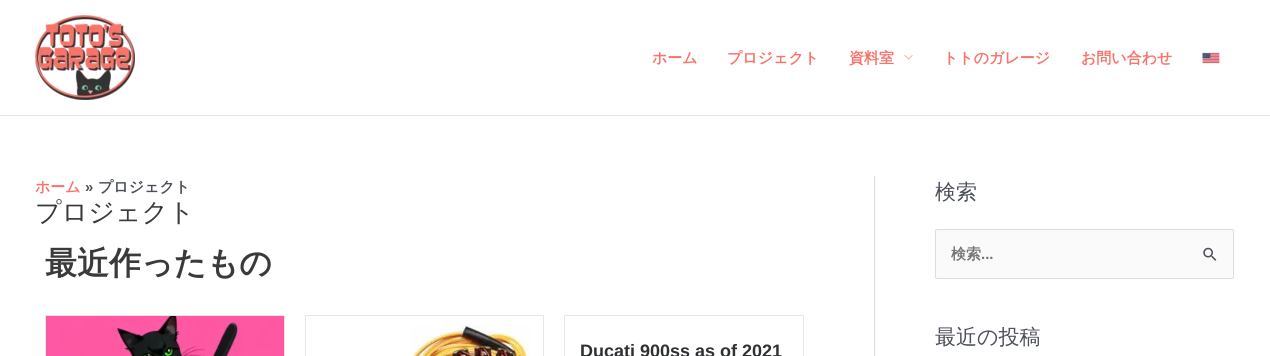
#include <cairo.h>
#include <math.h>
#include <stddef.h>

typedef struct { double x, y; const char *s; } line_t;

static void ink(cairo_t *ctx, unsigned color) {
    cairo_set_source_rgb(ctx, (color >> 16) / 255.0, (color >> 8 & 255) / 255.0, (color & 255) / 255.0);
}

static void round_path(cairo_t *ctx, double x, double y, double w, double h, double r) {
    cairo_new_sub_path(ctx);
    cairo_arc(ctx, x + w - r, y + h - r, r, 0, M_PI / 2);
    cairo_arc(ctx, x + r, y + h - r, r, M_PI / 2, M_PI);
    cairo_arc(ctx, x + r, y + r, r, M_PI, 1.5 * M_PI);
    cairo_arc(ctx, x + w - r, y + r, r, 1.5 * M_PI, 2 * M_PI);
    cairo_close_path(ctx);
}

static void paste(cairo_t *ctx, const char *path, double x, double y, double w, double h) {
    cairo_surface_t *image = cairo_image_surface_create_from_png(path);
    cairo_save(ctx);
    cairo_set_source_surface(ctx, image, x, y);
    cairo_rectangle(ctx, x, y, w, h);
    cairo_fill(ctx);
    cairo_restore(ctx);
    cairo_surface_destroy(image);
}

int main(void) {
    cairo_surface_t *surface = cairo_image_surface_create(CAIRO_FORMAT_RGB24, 1270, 356);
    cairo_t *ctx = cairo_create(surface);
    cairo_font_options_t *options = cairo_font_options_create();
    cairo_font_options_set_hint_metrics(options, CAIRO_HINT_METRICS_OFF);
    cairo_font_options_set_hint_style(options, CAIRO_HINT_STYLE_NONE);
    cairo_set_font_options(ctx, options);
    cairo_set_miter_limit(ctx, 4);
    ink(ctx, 0xFFFFFF);
    cairo_paint(ctx);
    ink(ctx, 0xE5E5E5);
    cairo_rectangle(ctx, 0, 115, 1270, 1);
    cairo_fill(ctx);
    paste(ctx, "media/1.png", 35, 15, 100, 85);
    cairo_select_font_face(ctx, "WenQuanYi Zen Hei", CAIRO_FONT_SLANT_NORMAL, CAIRO_FONT_WEIGHT_BOLD);
    cairo_set_font_size(ctx, 15);
    ink(ctx, 0xFA7268);
    {
        static const line_t items[] = {
            {652, 63, "ホーム"},
            {727, 63, "プロジェクト"},
            {849, 63, "資料室"},
        };
        for (size_t i = 0; i < sizeof items / sizeof *items; i++) {
            cairo_move_to(ctx, items[i].x, items[i].y);
            cairo_show_text(ctx, items[i].s);
        }
    }
    paste(ctx, "media/2.png", 904, 55, 9, 5);
    cairo_move_to(ctx, 943, 63);
    cairo_show_text(ctx, "トトのガレージ");
    cairo_move_to(ctx, 1081, 63);
    cairo_show_text(ctx, "お問い合わせ");
    paste(ctx, "media/3.png", 1202, 52, 18, 12);
    ink(ctx, 0xDDDDDD);
    cairo_rectangle(ctx, 874, 176, 1, 180);
    cairo_fill(ctx);
    ink(ctx, 0xFA7268);
    cairo_move_to(ctx, 35, 192);
    cairo_show_text(ctx, "ホーム");
    cairo_select_font_face(ctx, "Liberation Sans", CAIRO_FONT_SLANT_NORMAL, CAIRO_FONT_WEIGHT_BOLD);
    ink(ctx, 0x4B4F58);
    cairo_move_to(ctx, 85, 192);
    cairo_show_text(ctx, "»");
    cairo_select_font_face(ctx, "WenQuanYi Zen Hei", CAIRO_FONT_SLANT_NORMAL, CAIRO_FONT_WEIGHT_BOLD);
    cairo_move_to(ctx, 98, 192);
    cairo_show_text(ctx, "プロジェクト");
    cairo_select_font_face(ctx, "WenQuanYi Zen Hei Medium", CAIRO_FONT_SLANT_NORMAL, CAIRO_FONT_WEIGHT_NORMAL);
    cairo_set_font_size(ctx, 26);
    ink(ctx, 0x3A3A3A);
    cairo_move_to(ctx, 35, 221);
    cairo_show_text(ctx, "プロジェクト");
    cairo_select_font_face(ctx, "WenQuanYi Zen Hei", CAIRO_FONT_SLANT_NORMAL, CAIRO_FONT_WEIGHT_BOLD);
    cairo_set_font_size(ctx, 32);
    cairo_move_to(ctx, 45, 274);
    cairo_show_text(ctx, "最近作ったもの");
    cairo_rectangle(ctx, 45.5, 315.5, 239, 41);
    ink(ctx, 0xE6E6E6);
    cairo_set_line_width(ctx, 1);
    cairo_stroke(ctx);
    paste(ctx, "media/4.png", 46, 316, 238, 40);
    cairo_rectangle(ctx, 305.5, 315.5, 238, 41);
    cairo_stroke(ctx);
    paste(ctx, "media/5.png", 411, 324, 119, 32);
    cairo_rectangle(ctx, 564.5, 315.5, 239, 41);
    cairo_stroke(ctx);
    cairo_select_font_face(ctx, "Liberation Sans", CAIRO_FONT_SLANT_NORMAL, CAIRO_FONT_WEIGHT_BOLD);
    cairo_set_font_size(ctx, 18);
    ink(ctx, 0x303133);
    cairo_move_to(ctx, 580, 357);
    cairo_show_text(ctx, "Ducati 900ss as of 2021");
    cairo_select_font_face(ctx, "WenQuanYi Zen Hei Medium", CAIRO_FONT_SLANT_NORMAL, CAIRO_FONT_WEIGHT_NORMAL);
    cairo_set_font_size(ctx, 21);
    ink(ctx, 0x4B4F58);
    cairo_move_to(ctx, 935, 199);
    cairo_show_text(ctx, "検索");
    ink(ctx, 0xFAFAFA);
    round_path(ctx, 935.5, 229.5, 298, 49, 1.5);
    cairo_fill_preserve(ctx);
    ink(ctx, 0xDDDDDD);
    cairo_stroke(ctx);
    cairo_select_font_face(ctx, "WenQuanYi Zen Hei", CAIRO_FONT_SLANT_NORMAL, CAIRO_FONT_WEIGHT_BOLD);
    cairo_set_font_size(ctx, 15);
    ink(ctx, 0x757575);
    cairo_move_to(ctx, 951, 259);
    cairo_show_text(ctx, "検索");
    cairo_select_font_face(ctx, "Liberation Sans", CAIRO_FONT_SLANT_NORMAL, CAIRO_FONT_WEIGHT_BOLD);
    cairo_move_to(ctx, 981, 259);
    cairo_show_text(ctx, "...");
    paste(ctx, "media/6.png", 1203, 247, 14, 14);
    cairo_select_font_face(ctx, "WenQuanYi Zen Hei Medium", CAIRO_FONT_SLANT_NORMAL, CAIRO_FONT_WEIGHT_NORMAL);
    cairo_set_font_size(ctx, 21);
    ink(ctx, 0x4B4F58);
    cairo_move_to(ctx, 935, 344);
    cairo_show_text(ctx, "最近の投稿");
    cairo_surface_write_to_png(surface, "image.png");
    cairo_font_options_destroy(options);
    cairo_destroy(ctx);
    cairo_surface_destroy(surface);
    return 0;
}
